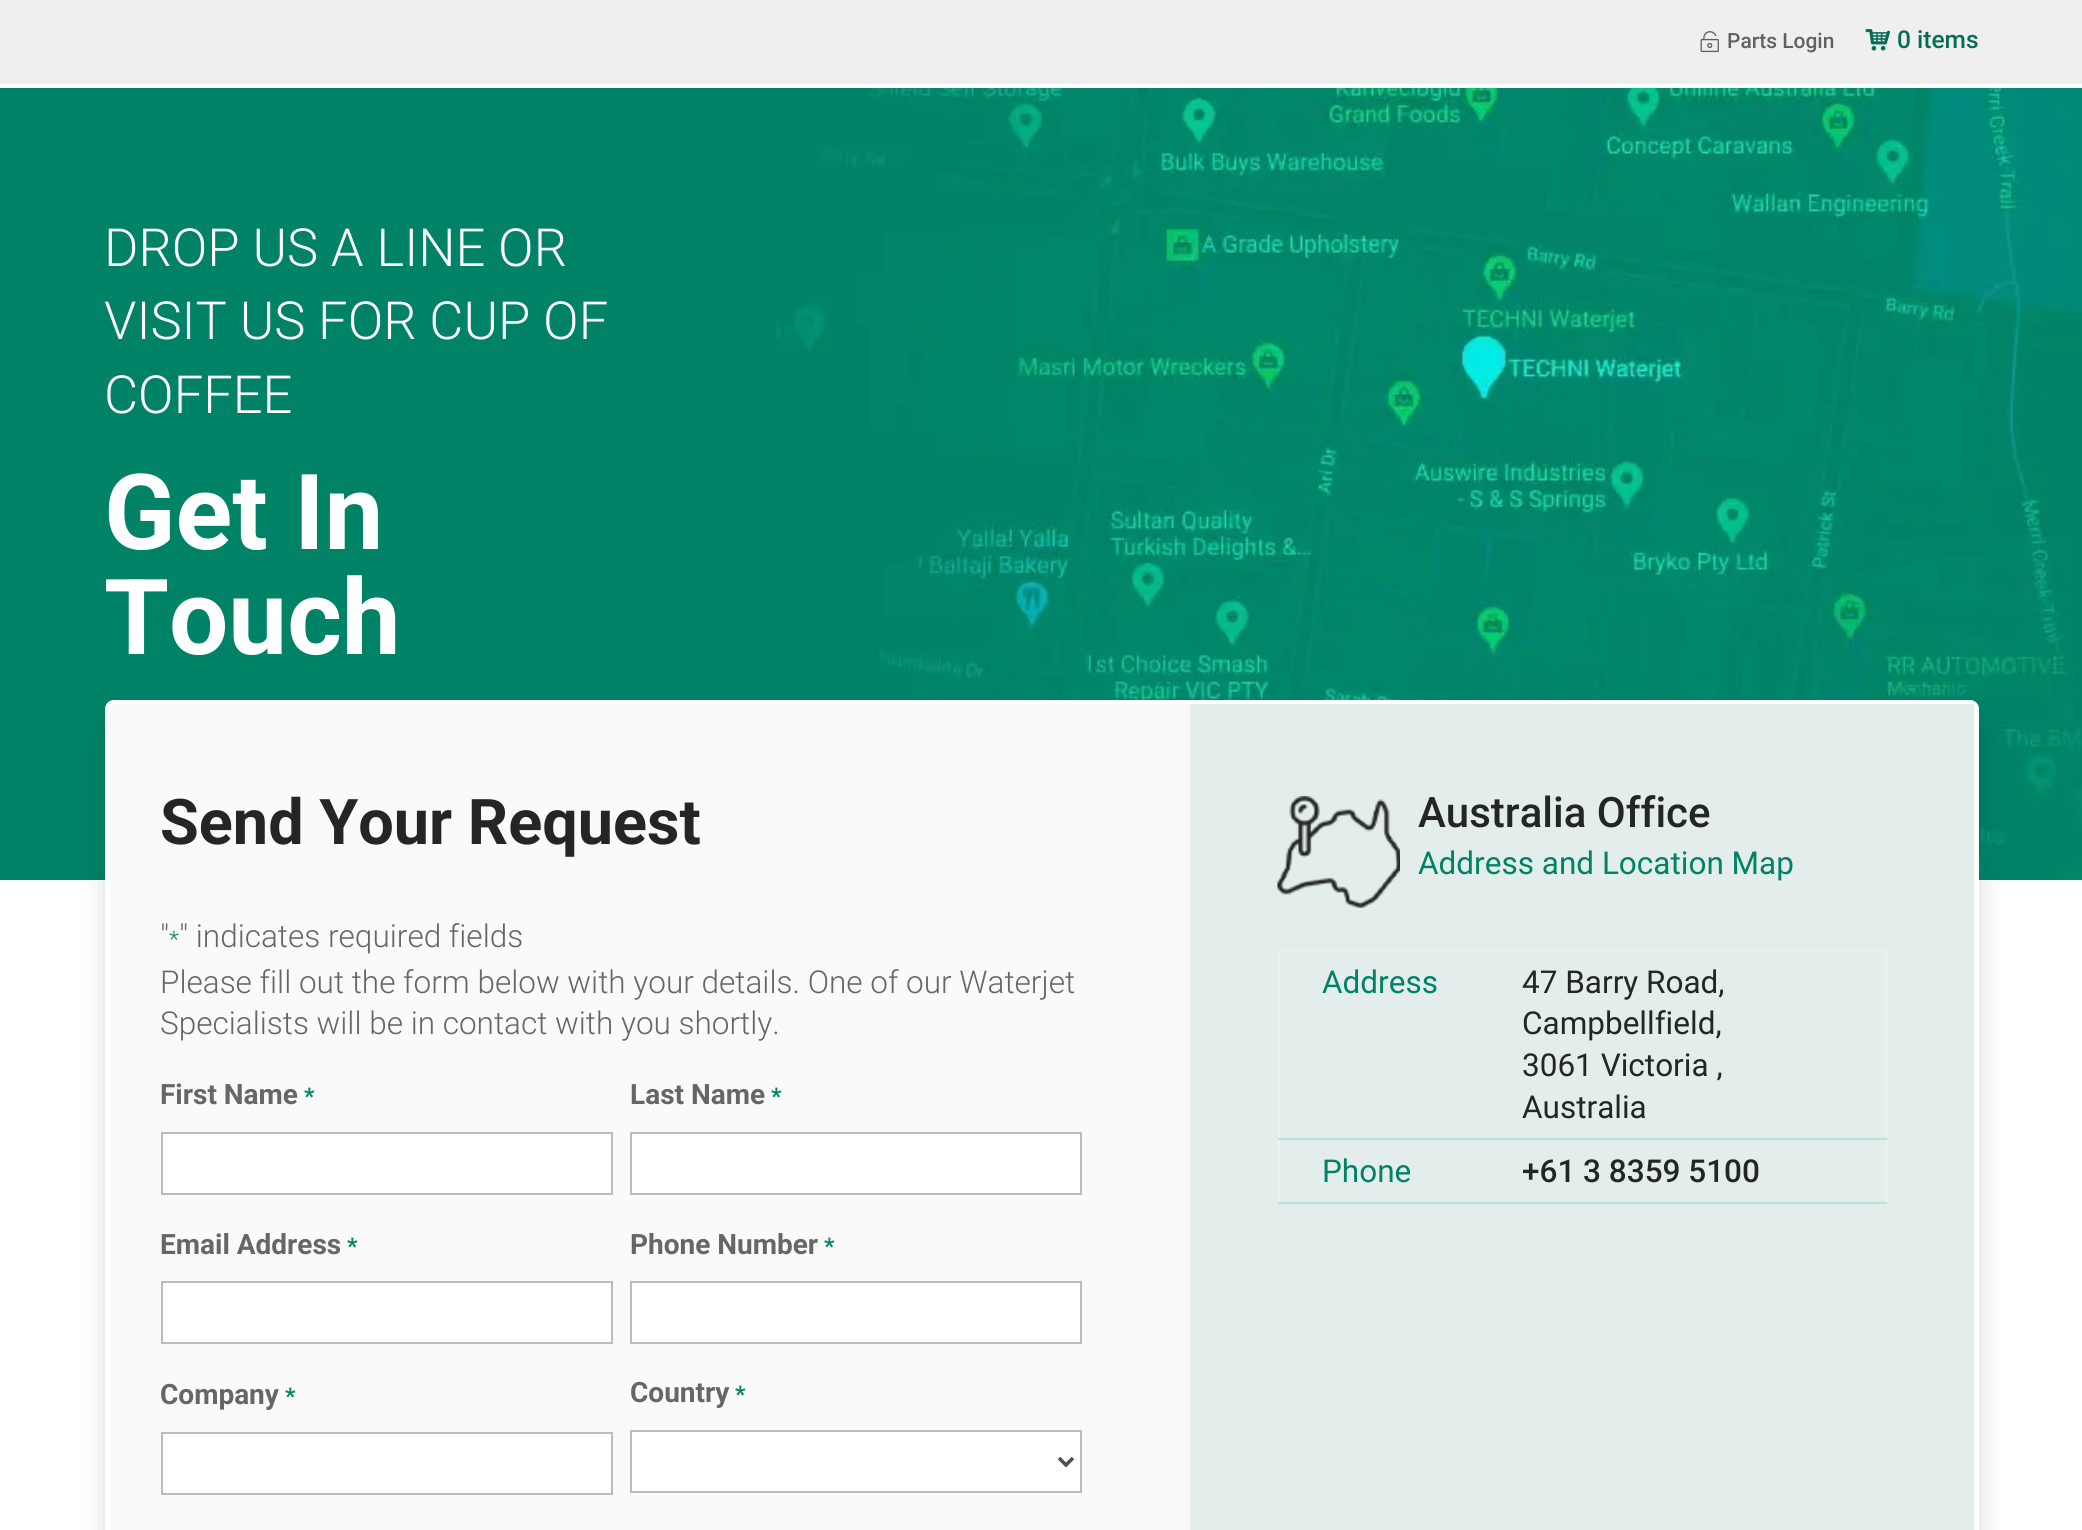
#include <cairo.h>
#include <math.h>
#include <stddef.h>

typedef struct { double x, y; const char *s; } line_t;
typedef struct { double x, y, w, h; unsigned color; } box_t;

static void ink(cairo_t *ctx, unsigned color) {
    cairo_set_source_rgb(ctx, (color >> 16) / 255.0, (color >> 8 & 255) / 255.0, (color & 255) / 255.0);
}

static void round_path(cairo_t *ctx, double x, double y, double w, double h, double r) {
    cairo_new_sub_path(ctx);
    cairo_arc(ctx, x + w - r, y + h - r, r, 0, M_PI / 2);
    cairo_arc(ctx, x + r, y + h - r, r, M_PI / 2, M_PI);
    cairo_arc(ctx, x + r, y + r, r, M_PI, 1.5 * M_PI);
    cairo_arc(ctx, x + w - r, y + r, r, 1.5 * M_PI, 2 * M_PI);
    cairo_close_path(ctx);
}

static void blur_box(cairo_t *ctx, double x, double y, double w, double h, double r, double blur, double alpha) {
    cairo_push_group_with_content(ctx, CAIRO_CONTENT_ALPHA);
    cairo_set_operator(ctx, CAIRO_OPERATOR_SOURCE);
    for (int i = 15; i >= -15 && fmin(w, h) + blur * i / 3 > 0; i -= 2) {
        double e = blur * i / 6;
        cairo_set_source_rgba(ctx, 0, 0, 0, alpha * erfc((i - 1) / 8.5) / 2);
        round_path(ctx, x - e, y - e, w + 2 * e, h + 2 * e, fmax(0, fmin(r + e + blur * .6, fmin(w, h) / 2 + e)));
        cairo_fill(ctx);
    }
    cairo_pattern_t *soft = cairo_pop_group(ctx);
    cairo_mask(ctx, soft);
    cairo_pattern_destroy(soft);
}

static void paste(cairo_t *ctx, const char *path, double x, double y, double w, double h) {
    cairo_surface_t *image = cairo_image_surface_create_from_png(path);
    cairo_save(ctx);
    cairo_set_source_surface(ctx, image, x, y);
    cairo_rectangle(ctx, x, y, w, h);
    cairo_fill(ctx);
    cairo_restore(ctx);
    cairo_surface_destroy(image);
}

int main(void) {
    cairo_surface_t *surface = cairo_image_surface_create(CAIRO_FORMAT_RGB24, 2082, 1530);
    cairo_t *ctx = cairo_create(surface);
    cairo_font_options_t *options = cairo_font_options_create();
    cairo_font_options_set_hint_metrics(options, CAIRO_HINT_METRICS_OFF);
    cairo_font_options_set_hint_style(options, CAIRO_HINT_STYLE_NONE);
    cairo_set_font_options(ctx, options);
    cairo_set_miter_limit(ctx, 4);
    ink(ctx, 0x008266);
    cairo_paint(ctx);
    ink(ctx, 0xEFEFEF);
    cairo_rectangle(ctx, 0, 0, 2082, 84);
    cairo_fill(ctx);
    paste(ctx, "media/1.png", 1700, 31, 19, 22);
    cairo_select_font_face(ctx, "Roboto Medium", CAIRO_FONT_SLANT_NORMAL, CAIRO_FONT_WEIGHT_NORMAL);
    cairo_set_font_size(ctx, 21);
    ink(ctx, 0x5E6165);
    cairo_move_to(ctx, 1727, 48);
    cairo_show_text(ctx, "Parts Login");
    paste(ctx, "media/2.png", 1865, 29, 25, 22);
    cairo_set_font_size(ctx, 24.5);
    ink(ctx, 0x036D56);
    cairo_move_to(ctx, 1897, 48);
    cairo_show_text(ctx, "0 items");
    ink(ctx, 0xFFFFFF);
    cairo_rectangle(ctx, 0, 84, 2082, 4);
    cairo_fill(ctx);
    paste(ctx, "media/3.png", 776, 88, 1306, 792);
    cairo_select_font_face(ctx, "Roboto Light", CAIRO_FONT_SLANT_NORMAL, CAIRO_FONT_WEIGHT_NORMAL);
    cairo_set_font_size(ctx, 52.5);
    {
        static const line_t items[] = {
            {104, 266, "DROP US A LINE OR"},
            {104, 339, "VISIT US FOR CUP OF"},
            {104, 413, "COFFEE"},
        };
        for (size_t i = 0; i < sizeof items / sizeof *items; i++) {
            cairo_move_to(ctx, items[i].x, items[i].y);
            cairo_show_text(ctx, items[i].s);
        }
    }
    cairo_select_font_face(ctx, "Roboto", CAIRO_FONT_SLANT_NORMAL, CAIRO_FONT_WEIGHT_BOLD);
    cairo_set_font_size(ctx, 105);
    cairo_move_to(ctx, 104, 549);
    cairo_show_text(ctx, "Get In");
    cairo_move_to(ctx, 104, 654);
    cairo_show_text(ctx, "Touch");
    cairo_rectangle(ctx, 0, 880, 2082, 650);
    cairo_fill(ctx);
    ink(ctx, 0x000000);
    blur_box(ctx, 116, 732, 1853, 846, 0, 16, 0.3);
    ink(ctx, 0xFAFAFA);
    round_path(ctx, 107, 702, 1870, 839, 7);
    cairo_fill_preserve(ctx);
    ink(ctx, 0xFFFFFF);
    cairo_set_line_width(ctx, 4);
    cairo_stroke(ctx);
    cairo_set_font_size(ctx, 63);
    ink(ctx, 0x242527);
    cairo_move_to(ctx, 160, 844);
    cairo_show_text(ctx, "Send Your Request");
    cairo_select_font_face(ctx, "Roboto Light", CAIRO_FONT_SLANT_NORMAL, CAIRO_FONT_WEIGHT_NORMAL);
    cairo_set_font_size(ctx, 31.5);
    ink(ctx, 0x666666);
    cairo_move_to(ctx, 160, 947);
    cairo_show_text(ctx, "\"");
    cairo_set_font_size(ctx, 23);
    ink(ctx, 0x008266);
    cairo_move_to(ctx, 169, 947);
    cairo_show_text(ctx, "*");
    cairo_set_font_size(ctx, 31.5);
    ink(ctx, 0x666666);
    {
        static const line_t items[] = {
            {179, 947, "\" indicates required fields"},
            {160, 993, "Please fill out the form below with your details. One of our Waterjet"},
            {160, 1034, "Specialists will be in contact with you shortly."},
        };
        for (size_t i = 0; i < sizeof items / sizeof *items; i++) {
            cairo_move_to(ctx, items[i].x, items[i].y);
            cairo_show_text(ctx, items[i].s);
        }
    }
    cairo_select_font_face(ctx, "Roboto", CAIRO_FONT_SLANT_NORMAL, CAIRO_FONT_WEIGHT_BOLD);
    cairo_set_font_size(ctx, 28);
    cairo_move_to(ctx, 160, 1104);
    cairo_show_text(ctx, "First Name");
    cairo_set_font_size(ctx, 23);
    ink(ctx, 0x008266);
    cairo_move_to(ctx, 304, 1104);
    cairo_show_text(ctx, "*");
    ink(ctx, 0xFFFFFF);
    cairo_rectangle(ctx, 162, 1133, 450, 61);
    cairo_fill_preserve(ctx);
    ink(ctx, 0xBBBBBB);
    cairo_set_line_width(ctx, 2);
    cairo_stroke(ctx);
    cairo_set_font_size(ctx, 28);
    ink(ctx, 0x666666);
    cairo_move_to(ctx, 630, 1104);
    cairo_show_text(ctx, "Last Name");
    cairo_set_font_size(ctx, 23);
    ink(ctx, 0x008266);
    cairo_move_to(ctx, 771, 1104);
    cairo_show_text(ctx, "*");
    ink(ctx, 0xFFFFFF);
    cairo_rectangle(ctx, 631, 1133, 450, 61);
    cairo_fill_preserve(ctx);
    ink(ctx, 0xBBBBBB);
    cairo_stroke(ctx);
    cairo_set_font_size(ctx, 28);
    ink(ctx, 0x666666);
    cairo_move_to(ctx, 160, 1254);
    cairo_show_text(ctx, "Email Address");
    cairo_set_font_size(ctx, 23);
    ink(ctx, 0x008266);
    cairo_move_to(ctx, 347, 1254);
    cairo_show_text(ctx, "*");
    ink(ctx, 0xFFFFFF);
    cairo_rectangle(ctx, 162, 1282, 450, 61);
    cairo_fill_preserve(ctx);
    ink(ctx, 0xBBBBBB);
    cairo_stroke(ctx);
    cairo_set_font_size(ctx, 28);
    ink(ctx, 0x666666);
    cairo_move_to(ctx, 630, 1254);
    cairo_show_text(ctx, "Phone Number");
    cairo_set_font_size(ctx, 23);
    ink(ctx, 0x008266);
    cairo_move_to(ctx, 824, 1254);
    cairo_show_text(ctx, "*");
    ink(ctx, 0xFFFFFF);
    cairo_rectangle(ctx, 631, 1282, 450, 61);
    cairo_fill_preserve(ctx);
    ink(ctx, 0xBBBBBB);
    cairo_stroke(ctx);
    cairo_set_font_size(ctx, 28);
    ink(ctx, 0x666666);
    cairo_move_to(ctx, 160, 1404);
    cairo_show_text(ctx, "Company");
    cairo_set_font_size(ctx, 23);
    ink(ctx, 0x008266);
    cairo_move_to(ctx, 285, 1404);
    cairo_show_text(ctx, "*");
    ink(ctx, 0xFFFFFF);
    cairo_rectangle(ctx, 162, 1433, 450, 61);
    cairo_fill_preserve(ctx);
    ink(ctx, 0xBBBBBB);
    cairo_stroke(ctx);
    cairo_set_font_size(ctx, 28);
    ink(ctx, 0x666666);
    cairo_move_to(ctx, 630, 1402);
    cairo_show_text(ctx, "Country");
    cairo_set_font_size(ctx, 23);
    ink(ctx, 0x008266);
    cairo_move_to(ctx, 735, 1402);
    cairo_show_text(ctx, "*");
    ink(ctx, 0xFFFFFF);
    cairo_rectangle(ctx, 631, 1431, 450, 61);
    cairo_fill_preserve(ctx);
    ink(ctx, 0xBBBBBB);
    cairo_stroke(ctx);
    cairo_new_path(ctx);
    cairo_move_to(ctx, 1059, 1458);
    cairo_line_to(ctx, 1066, 1465);
    cairo_line_to(ctx, 1073, 1458);
    ink(ctx, 0x4E4E4E);
    cairo_set_line_width(ctx, 3.5);
    cairo_stroke(ctx);
    ink(ctx, 0xE3EEEC);
    cairo_rectangle(ctx, 1190, 704, 784, 826);
    cairo_fill(ctx);
    paste(ctx, "media/4.png", 1277, 796, 123, 112);
    cairo_select_font_face(ctx, "Roboto Medium", CAIRO_FONT_SLANT_NORMAL, CAIRO_FONT_WEIGHT_NORMAL);
    cairo_set_font_size(ctx, 42);
    ink(ctx, 0x242527);
    cairo_move_to(ctx, 1418, 827);
    cairo_show_text(ctx, "Australia Office");
    cairo_select_font_face(ctx, "Roboto", CAIRO_FONT_SLANT_NORMAL, CAIRO_FONT_WEIGHT_NORMAL);
    cairo_set_font_size(ctx, 31.5);
    ink(ctx, 0x008266);
    cairo_move_to(ctx, 1418, 874);
    cairo_show_text(ctx, "Address and Location Map");
    {
        static const box_t items[] = {
            {1278, 949, 609, 2, 0xEEEEEE},
            {1885, 949, 2, 255, 0xEEEEEE},
            {1278, 949, 2, 255, 0xEEEEEE},
        };
        for (size_t i = 0; i < sizeof items / sizeof *items; i++) {
            ink(ctx, items[i].color);
            cairo_rectangle(ctx, items[i].x, items[i].y, items[i].w, items[i].h);
            cairo_fill(ctx);
        }
    }
    ink(ctx, 0x008266);
    cairo_move_to(ctx, 1322, 993);
    cairo_show_text(ctx, "Address");
    ink(ctx, 0xC0DFD8);
    cairo_rectangle(ctx, 1278, 1138, 609, 2);
    cairo_fill(ctx);
    ink(ctx, 0x242527);
    {
        static const line_t items[] = {
            {1522, 993, "47 Barry Road,"},
            {1522, 1034, "Campbellfield,"},
            {1522, 1076, "3061 Victoria ,"},
            {1522, 1118, "Australia"},
        };
        for (size_t i = 0; i < sizeof items / sizeof *items; i++) {
            cairo_move_to(ctx, items[i].x, items[i].y);
            cairo_show_text(ctx, items[i].s);
        }
    }
    ink(ctx, 0x008266);
    cairo_move_to(ctx, 1322, 1182);
    cairo_show_text(ctx, "Phone");
    ink(ctx, 0xC0DFD8);
    cairo_rectangle(ctx, 1278, 1202, 609, 2);
    cairo_fill(ctx);
    cairo_select_font_face(ctx, "Roboto Medium", CAIRO_FONT_SLANT_NORMAL, CAIRO_FONT_WEIGHT_NORMAL);
    ink(ctx, 0x242527);
    cairo_move_to(ctx, 1522, 1182);
    cairo_show_text(ctx, "+61 3 8359 5100");
    cairo_surface_write_to_png(surface, "image.png");
    cairo_font_options_destroy(options);
    cairo_destroy(ctx);
    cairo_surface_destroy(surface);
    return 0;
}
